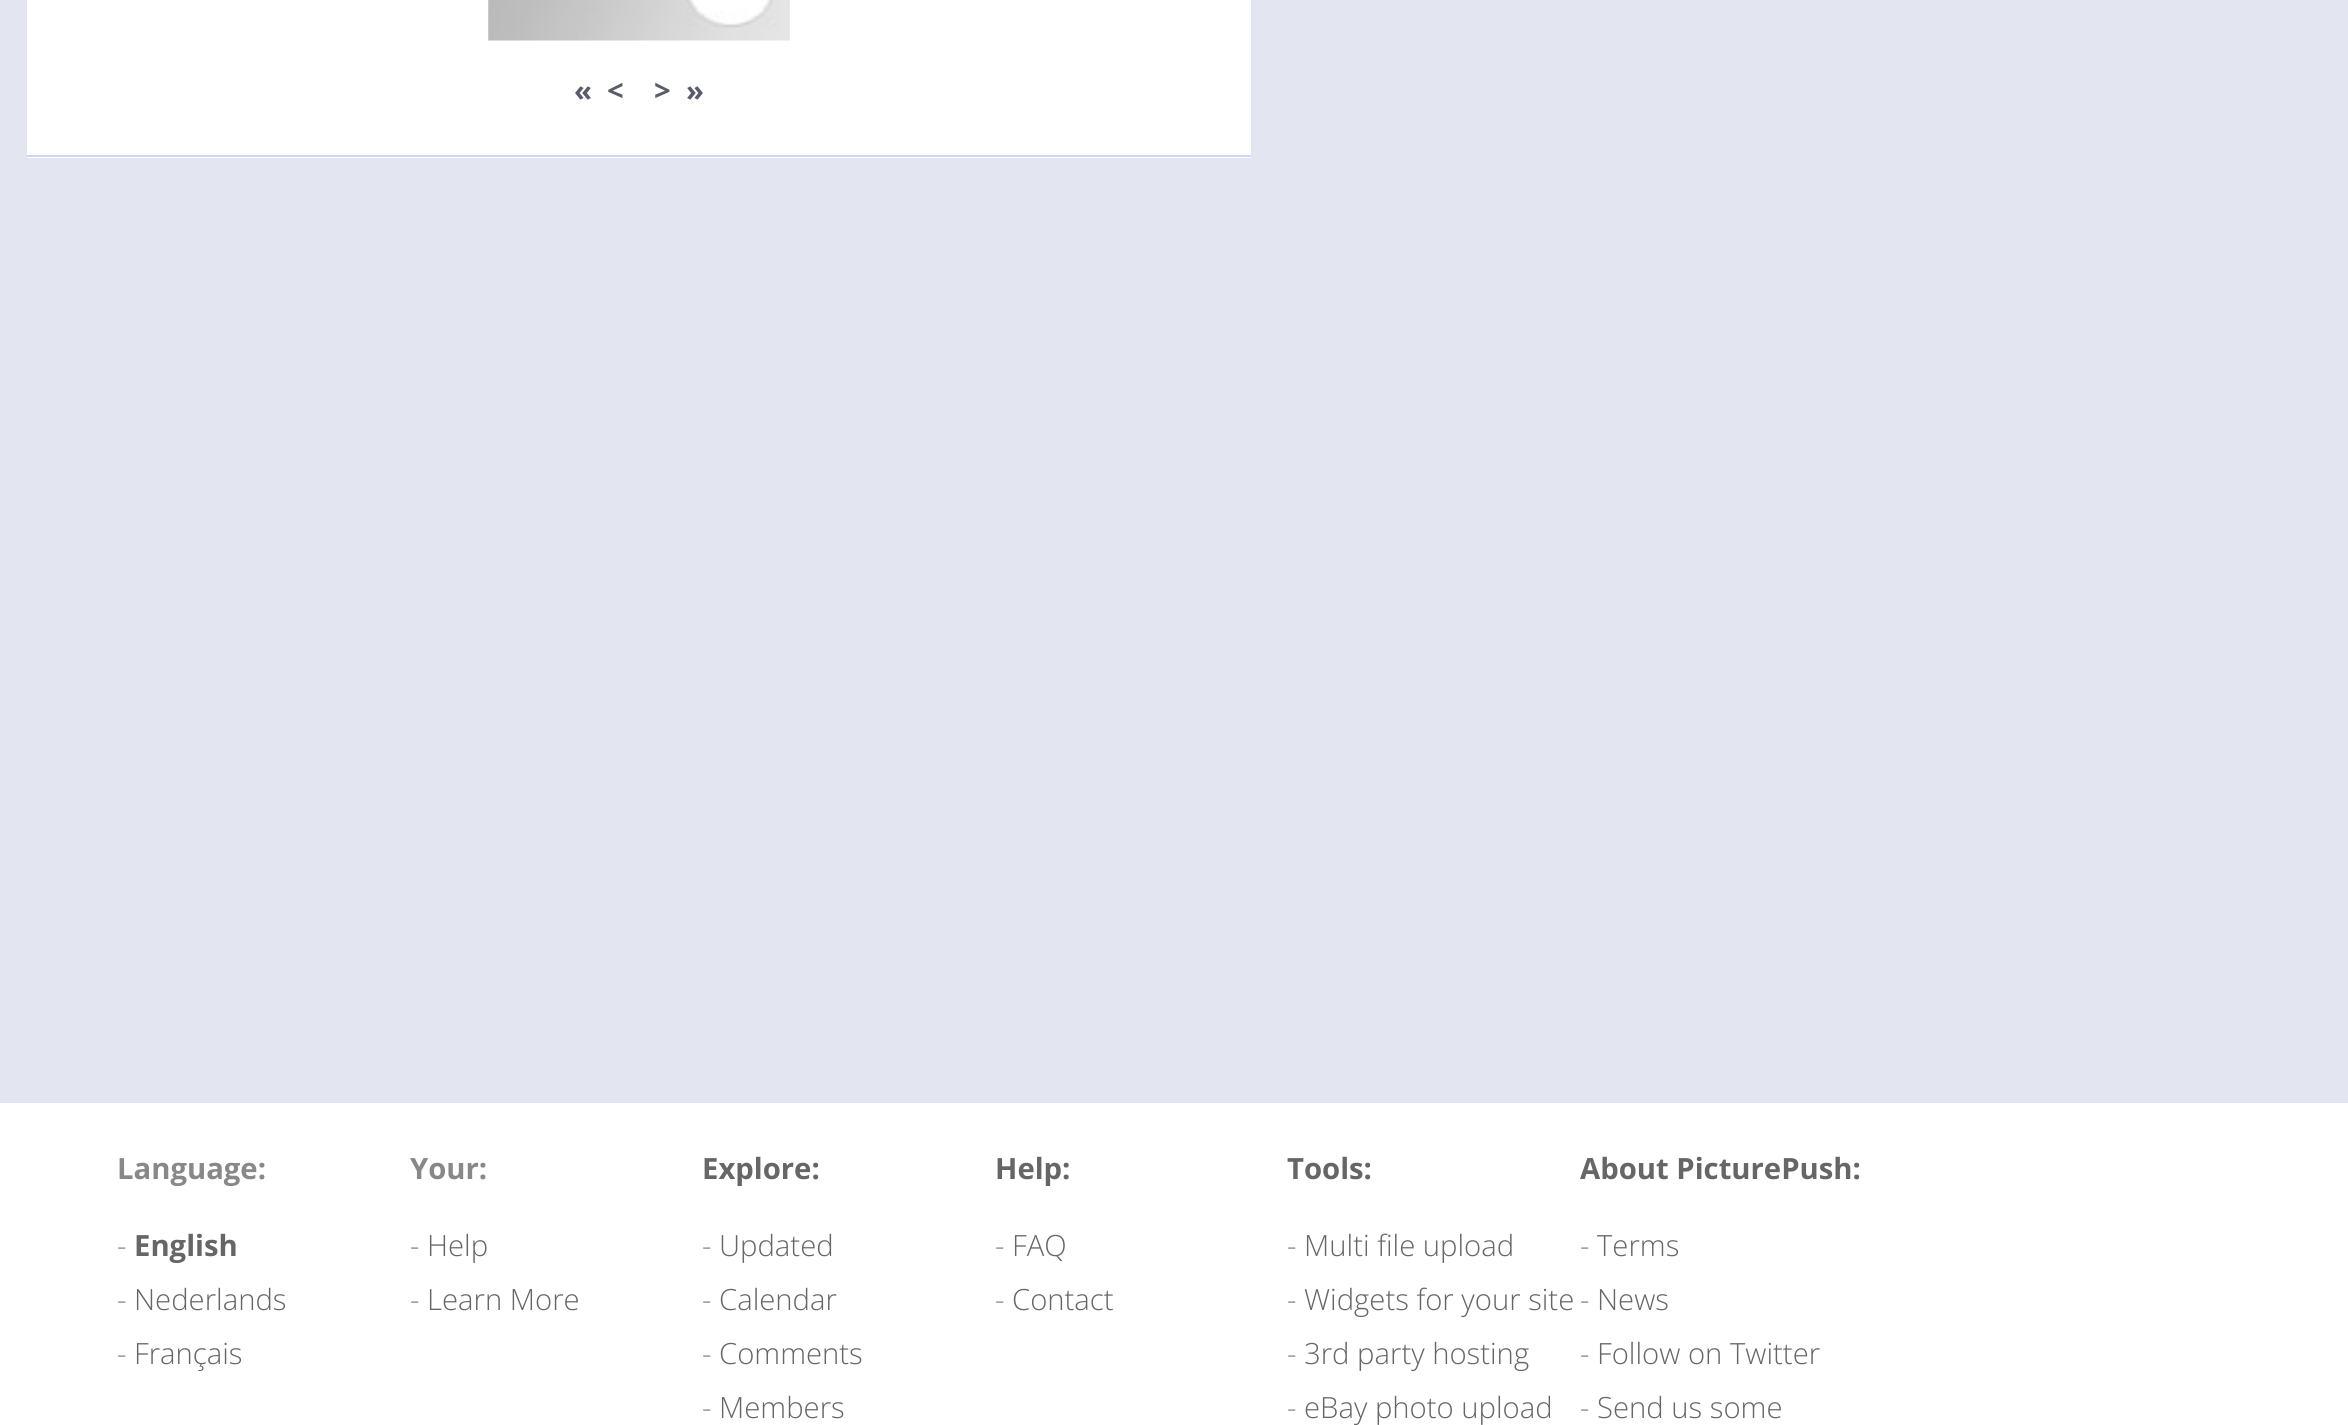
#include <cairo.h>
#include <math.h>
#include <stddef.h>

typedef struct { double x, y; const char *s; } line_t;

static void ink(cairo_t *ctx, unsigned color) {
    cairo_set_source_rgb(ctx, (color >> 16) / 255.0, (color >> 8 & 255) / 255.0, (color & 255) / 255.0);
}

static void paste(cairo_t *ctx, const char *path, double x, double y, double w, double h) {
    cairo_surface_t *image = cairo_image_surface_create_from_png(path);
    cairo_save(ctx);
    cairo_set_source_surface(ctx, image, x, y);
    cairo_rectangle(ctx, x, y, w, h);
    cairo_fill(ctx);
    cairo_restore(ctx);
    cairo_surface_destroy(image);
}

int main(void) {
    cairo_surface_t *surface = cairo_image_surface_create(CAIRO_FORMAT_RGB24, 2348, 1425);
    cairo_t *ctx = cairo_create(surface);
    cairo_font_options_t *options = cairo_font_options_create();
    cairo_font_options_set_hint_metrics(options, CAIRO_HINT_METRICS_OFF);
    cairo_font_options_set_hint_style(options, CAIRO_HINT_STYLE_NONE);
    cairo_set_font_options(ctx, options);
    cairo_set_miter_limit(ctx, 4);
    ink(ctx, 0xE3E6F1);
    cairo_paint(ctx);
    ink(ctx, 0xFFFFFF);
    cairo_rectangle(ctx, 27, 0, 1224, 158);
    cairo_fill(ctx);
    ink(ctx, 0xCFD4FF);
    cairo_rectangle(ctx, 27, 155, 1224, 2);
    cairo_fill(ctx);
    paste(ctx, "media/1.png", 488, 0, 302, 41);
    cairo_select_font_face(ctx, "Open Sans", CAIRO_FONT_SLANT_NORMAL, CAIRO_FONT_WEIGHT_BOLD);
    cairo_set_font_size(ctx, 29.25);
    ink(ctx, 0x5A5C6C);
    {
        static const line_t items[] = {
            {574, 101, "«"},
            {607, 101, "<"},
            {654, 101, ">"},
            {686, 101, "»"},
        };
        for (size_t i = 0; i < sizeof items / sizeof *items; i++) {
            cairo_move_to(ctx, items[i].x, items[i].y);
            cairo_show_text(ctx, items[i].s);
        }
    }
    ink(ctx, 0xFFFFFF);
    cairo_rectangle(ctx, 0, 1103, 2348, 322);
    cairo_fill(ctx);
    ink(ctx, 0x888888);
    cairo_move_to(ctx, 117, 1179);
    cairo_show_text(ctx, "Language:");
    cairo_select_font_face(ctx, "Open Sans Light", CAIRO_FONT_SLANT_NORMAL, CAIRO_FONT_WEIGHT_NORMAL);
    cairo_move_to(ctx, 117, 1256);
    cairo_show_text(ctx, "-");
    cairo_select_font_face(ctx, "Open Sans", CAIRO_FONT_SLANT_NORMAL, CAIRO_FONT_WEIGHT_BOLD);
    ink(ctx, 0x666666);
    cairo_move_to(ctx, 134, 1256);
    cairo_show_text(ctx, "English");
    cairo_select_font_face(ctx, "Open Sans Light", CAIRO_FONT_SLANT_NORMAL, CAIRO_FONT_WEIGHT_NORMAL);
    ink(ctx, 0x888888);
    cairo_move_to(ctx, 117, 1310);
    cairo_show_text(ctx, "-");
    ink(ctx, 0x666666);
    cairo_move_to(ctx, 134, 1310);
    cairo_show_text(ctx, "Nederlands");
    ink(ctx, 0x888888);
    cairo_move_to(ctx, 117, 1364);
    cairo_show_text(ctx, "-");
    ink(ctx, 0x666666);
    cairo_move_to(ctx, 134, 1364);
    cairo_show_text(ctx, "Français");
    cairo_select_font_face(ctx, "Open Sans", CAIRO_FONT_SLANT_NORMAL, CAIRO_FONT_WEIGHT_BOLD);
    ink(ctx, 0x888888);
    cairo_move_to(ctx, 410, 1179);
    cairo_show_text(ctx, "Your:");
    cairo_select_font_face(ctx, "Open Sans Light", CAIRO_FONT_SLANT_NORMAL, CAIRO_FONT_WEIGHT_NORMAL);
    cairo_move_to(ctx, 410, 1256);
    cairo_show_text(ctx, "-");
    ink(ctx, 0x666666);
    cairo_move_to(ctx, 427, 1256);
    cairo_show_text(ctx, "Help");
    ink(ctx, 0x888888);
    cairo_move_to(ctx, 410, 1310);
    cairo_show_text(ctx, "-");
    ink(ctx, 0x666666);
    cairo_move_to(ctx, 427, 1310);
    cairo_show_text(ctx, "Learn More");
    cairo_select_font_face(ctx, "Open Sans", CAIRO_FONT_SLANT_NORMAL, CAIRO_FONT_WEIGHT_BOLD);
    cairo_move_to(ctx, 702, 1179);
    cairo_show_text(ctx, "Explore:");
    cairo_select_font_face(ctx, "Open Sans Light", CAIRO_FONT_SLANT_NORMAL, CAIRO_FONT_WEIGHT_NORMAL);
    ink(ctx, 0x888888);
    cairo_move_to(ctx, 702, 1256);
    cairo_show_text(ctx, "-");
    ink(ctx, 0x666666);
    cairo_move_to(ctx, 719, 1256);
    cairo_show_text(ctx, "Updated");
    ink(ctx, 0x888888);
    cairo_move_to(ctx, 702, 1310);
    cairo_show_text(ctx, "-");
    ink(ctx, 0x666666);
    cairo_move_to(ctx, 719, 1310);
    cairo_show_text(ctx, "Calendar");
    ink(ctx, 0x888888);
    cairo_move_to(ctx, 702, 1364);
    cairo_show_text(ctx, "-");
    ink(ctx, 0x666666);
    cairo_move_to(ctx, 719, 1364);
    cairo_show_text(ctx, "Comments");
    ink(ctx, 0x888888);
    cairo_move_to(ctx, 702, 1418);
    cairo_show_text(ctx, "-");
    ink(ctx, 0x666666);
    cairo_move_to(ctx, 719, 1418);
    cairo_show_text(ctx, "Members");
    cairo_select_font_face(ctx, "Open Sans", CAIRO_FONT_SLANT_NORMAL, CAIRO_FONT_WEIGHT_BOLD);
    cairo_move_to(ctx, 995, 1179);
    cairo_show_text(ctx, "Help:");
    cairo_select_font_face(ctx, "Open Sans Light", CAIRO_FONT_SLANT_NORMAL, CAIRO_FONT_WEIGHT_NORMAL);
    ink(ctx, 0x888888);
    cairo_move_to(ctx, 995, 1256);
    cairo_show_text(ctx, "-");
    ink(ctx, 0x666666);
    cairo_move_to(ctx, 1012, 1256);
    cairo_show_text(ctx, "FAQ");
    ink(ctx, 0x888888);
    cairo_move_to(ctx, 995, 1310);
    cairo_show_text(ctx, "-");
    ink(ctx, 0x666666);
    cairo_move_to(ctx, 1012, 1310);
    cairo_show_text(ctx, "Contact");
    cairo_select_font_face(ctx, "Open Sans", CAIRO_FONT_SLANT_NORMAL, CAIRO_FONT_WEIGHT_BOLD);
    cairo_move_to(ctx, 1287, 1179);
    cairo_show_text(ctx, "Tools:");
    cairo_select_font_face(ctx, "Open Sans Light", CAIRO_FONT_SLANT_NORMAL, CAIRO_FONT_WEIGHT_NORMAL);
    ink(ctx, 0x888888);
    cairo_move_to(ctx, 1287, 1256);
    cairo_show_text(ctx, "-");
    ink(ctx, 0x666666);
    cairo_move_to(ctx, 1304, 1256);
    cairo_show_text(ctx, "Multi file upload");
    ink(ctx, 0x888888);
    cairo_move_to(ctx, 1287, 1310);
    cairo_show_text(ctx, "-");
    ink(ctx, 0x666666);
    cairo_move_to(ctx, 1304, 1310);
    cairo_show_text(ctx, "Widgets for your site");
    ink(ctx, 0x888888);
    cairo_move_to(ctx, 1287, 1364);
    cairo_show_text(ctx, "-");
    ink(ctx, 0x666666);
    cairo_move_to(ctx, 1304, 1364);
    cairo_show_text(ctx, "3rd party hosting");
    ink(ctx, 0x888888);
    cairo_move_to(ctx, 1287, 1418);
    cairo_show_text(ctx, "-");
    ink(ctx, 0x666666);
    cairo_move_to(ctx, 1304, 1418);
    cairo_show_text(ctx, "eBay photo upload");
    cairo_select_font_face(ctx, "Open Sans", CAIRO_FONT_SLANT_NORMAL, CAIRO_FONT_WEIGHT_BOLD);
    cairo_move_to(ctx, 1580, 1179);
    cairo_show_text(ctx, "About PicturePush:");
    cairo_select_font_face(ctx, "Open Sans Light", CAIRO_FONT_SLANT_NORMAL, CAIRO_FONT_WEIGHT_NORMAL);
    ink(ctx, 0x888888);
    cairo_move_to(ctx, 1580, 1256);
    cairo_show_text(ctx, "-");
    ink(ctx, 0x666666);
    cairo_move_to(ctx, 1597, 1256);
    cairo_show_text(ctx, "Terms");
    ink(ctx, 0x888888);
    cairo_move_to(ctx, 1580, 1310);
    cairo_show_text(ctx, "-");
    ink(ctx, 0x666666);
    cairo_move_to(ctx, 1597, 1310);
    cairo_show_text(ctx, "News");
    ink(ctx, 0x888888);
    cairo_move_to(ctx, 1580, 1364);
    cairo_show_text(ctx, "-");
    ink(ctx, 0x666666);
    cairo_move_to(ctx, 1597, 1364);
    cairo_show_text(ctx, "Follow on Twitter");
    ink(ctx, 0x888888);
    cairo_move_to(ctx, 1580, 1418);
    cairo_show_text(ctx, "-");
    ink(ctx, 0x666666);
    cairo_move_to(ctx, 1597, 1418);
    cairo_show_text(ctx, "Send us some");
    cairo_surface_write_to_png(surface, "image.png");
    cairo_font_options_destroy(options);
    cairo_destroy(ctx);
    cairo_surface_destroy(surface);
    return 0;
}
